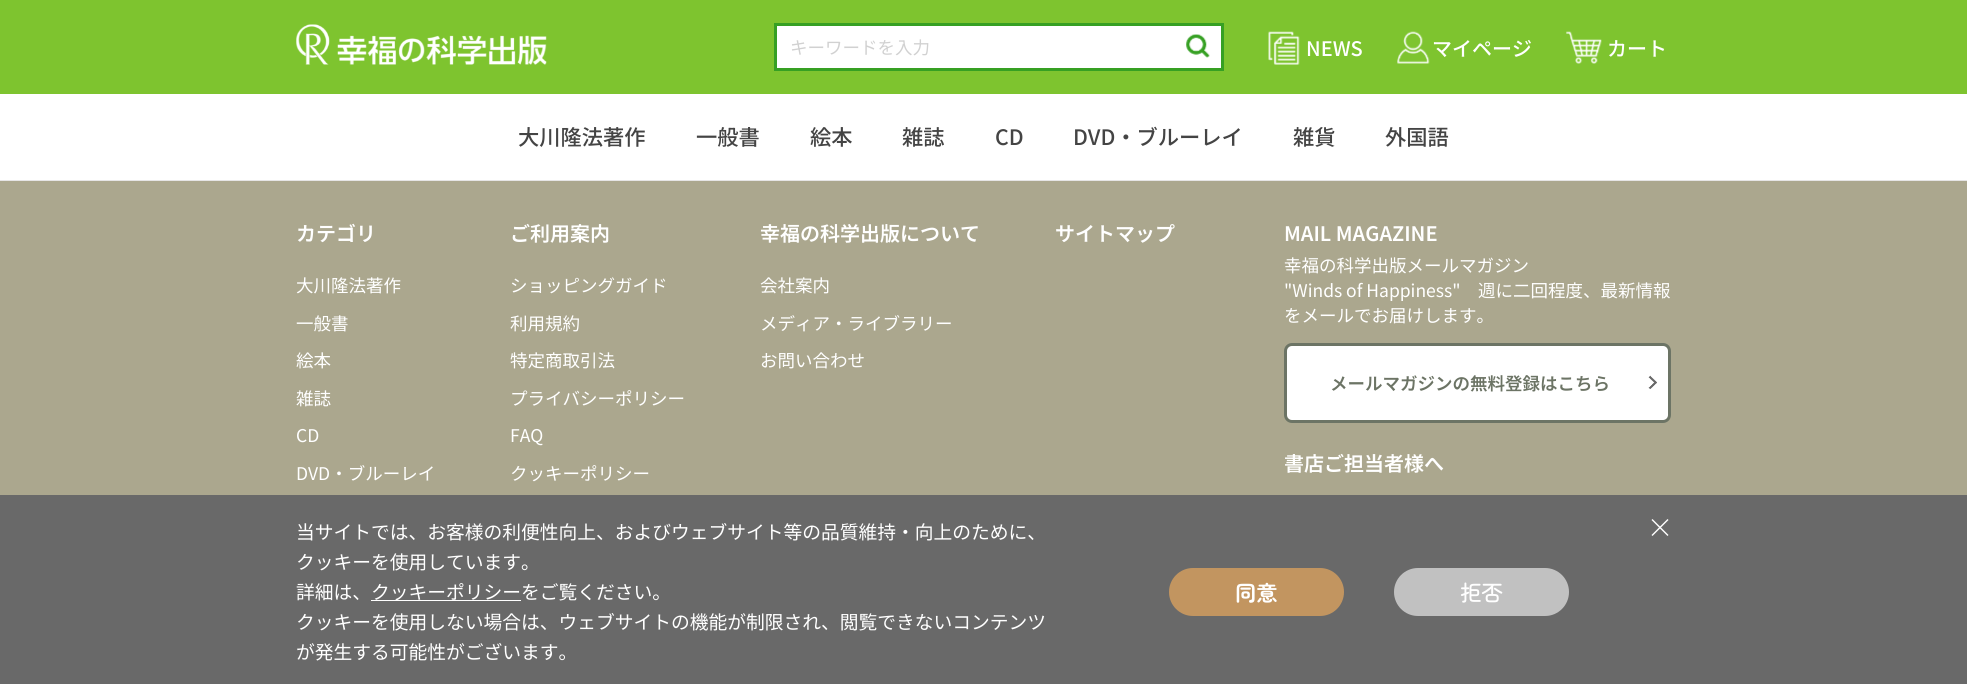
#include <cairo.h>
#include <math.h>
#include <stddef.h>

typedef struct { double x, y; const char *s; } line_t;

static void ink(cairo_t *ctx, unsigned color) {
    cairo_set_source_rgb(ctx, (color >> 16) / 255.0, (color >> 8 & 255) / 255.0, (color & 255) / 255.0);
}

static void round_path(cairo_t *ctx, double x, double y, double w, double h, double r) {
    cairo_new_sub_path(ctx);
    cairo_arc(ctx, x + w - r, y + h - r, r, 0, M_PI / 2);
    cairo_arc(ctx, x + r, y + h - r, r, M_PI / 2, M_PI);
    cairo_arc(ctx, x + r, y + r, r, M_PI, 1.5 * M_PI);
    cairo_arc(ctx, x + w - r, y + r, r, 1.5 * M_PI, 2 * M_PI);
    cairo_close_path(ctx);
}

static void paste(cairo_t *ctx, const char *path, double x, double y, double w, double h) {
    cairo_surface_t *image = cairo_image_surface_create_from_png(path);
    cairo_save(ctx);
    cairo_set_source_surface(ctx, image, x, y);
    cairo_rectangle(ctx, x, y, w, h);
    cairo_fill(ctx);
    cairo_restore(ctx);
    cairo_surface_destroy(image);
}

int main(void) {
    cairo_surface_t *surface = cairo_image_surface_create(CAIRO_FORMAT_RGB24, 1967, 684);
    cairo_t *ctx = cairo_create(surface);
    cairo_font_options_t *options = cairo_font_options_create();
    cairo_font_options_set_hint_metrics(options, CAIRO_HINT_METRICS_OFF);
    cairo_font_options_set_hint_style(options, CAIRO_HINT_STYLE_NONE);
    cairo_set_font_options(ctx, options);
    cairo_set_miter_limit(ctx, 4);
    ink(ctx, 0xABA78E);
    cairo_paint(ctx);
    ink(ctx, 0x7EC42F);
    cairo_rectangle(ctx, 0, 0, 1967, 94);
    cairo_fill(ctx);
    paste(ctx, "media/1.png", 296, 24, 251, 41);
    ink(ctx, 0xFFFFFF);
    cairo_rectangle(ctx, 775.5, 24.5, 447, 45);
    cairo_fill_preserve(ctx);
    ink(ctx, 0x36A023);
    cairo_set_line_width(ctx, 3);
    cairo_stroke(ctx);
    cairo_select_font_face(ctx, "Noto Sans JP", CAIRO_FONT_SLANT_NORMAL, CAIRO_FONT_WEIGHT_NORMAL);
    cairo_set_font_size(ctx, 17.5);
    ink(ctx, 0xD1D1D1);
    cairo_move_to(ctx, 790, 54);
    cairo_show_text(ctx, "キーワードを入力");
    paste(ctx, "media/2.png", 1186, 34, 24, 24);
    paste(ctx, "media/3.png", 1268, 31, 32, 34);
    cairo_select_font_face(ctx, "Noto Sans JP Medium", CAIRO_FONT_SLANT_NORMAL, CAIRO_FONT_WEIGHT_NORMAL);
    cairo_set_font_size(ctx, 20);
    ink(ctx, 0xFFFFFF);
    cairo_move_to(ctx, 1306, 56);
    cairo_show_text(ctx, "NEWS");
    paste(ctx, "media/4.png", 1397, 31, 33, 33);
    cairo_move_to(ctx, 1432, 56);
    cairo_show_text(ctx, "マイページ");
    paste(ctx, "media/5.png", 1566, 31, 36, 33);
    cairo_move_to(ctx, 1607, 56);
    cairo_show_text(ctx, "カート");
    cairo_rectangle(ctx, 0, 94, 1967, 86);
    cairo_fill(ctx);
    ink(ctx, 0xE6E5E5);
    cairo_rectangle(ctx, 0, 180, 1967, 1);
    cairo_fill(ctx);
    cairo_set_font_size(ctx, 21.25);
    ink(ctx, 0x444444);
    {
        static const line_t items[] = {
            {518, 145, "大川隆法著作"},
            {696, 145, "一般書"},
            {810, 145, "絵本"},
            {902, 145, "雑誌"},
            {995, 145, "CD"},
            {1073, 145, "DVD・ブルーレイ"},
            {1293, 145, "雑貨"},
            {1385, 145, "外国語"},
        };
        for (size_t i = 0; i < sizeof items / sizeof *items; i++) {
            cairo_move_to(ctx, items[i].x, items[i].y);
            cairo_show_text(ctx, items[i].s);
        }
    }
    cairo_select_font_face(ctx, "Noto Sans JP SemiBold", CAIRO_FONT_SLANT_NORMAL, CAIRO_FONT_WEIGHT_NORMAL);
    cairo_set_font_size(ctx, 20);
    ink(ctx, 0xFFFFFF);
    cairo_move_to(ctx, 296, 241);
    cairo_show_text(ctx, "カテゴリ");
    cairo_select_font_face(ctx, "Noto Sans JP", CAIRO_FONT_SLANT_NORMAL, CAIRO_FONT_WEIGHT_NORMAL);
    cairo_set_font_size(ctx, 17.5);
    {
        static const line_t items[] = {
            {296, 292, "大川隆法著作"},
            {296, 330, "一般書"},
            {296, 367, "絵本"},
            {296, 405, "雑誌"},
            {296, 442, "CD"},
            {296, 480, "DVD・ブルーレイ"},
        };
        for (size_t i = 0; i < sizeof items / sizeof *items; i++) {
            cairo_move_to(ctx, items[i].x, items[i].y);
            cairo_show_text(ctx, items[i].s);
        }
    }
    cairo_select_font_face(ctx, "Noto Sans JP SemiBold", CAIRO_FONT_SLANT_NORMAL, CAIRO_FONT_WEIGHT_NORMAL);
    cairo_set_font_size(ctx, 20);
    cairo_move_to(ctx, 510, 241);
    cairo_show_text(ctx, "ご利用案内");
    cairo_select_font_face(ctx, "Noto Sans JP", CAIRO_FONT_SLANT_NORMAL, CAIRO_FONT_WEIGHT_NORMAL);
    cairo_set_font_size(ctx, 17.5);
    {
        static const line_t items[] = {
            {510, 292, "ショッピングガイド"},
            {510, 330, "利用規約"},
            {510, 367, "特定商取引法"},
            {510, 405, "プライバシーポリシー"},
            {510, 442, "FAQ"},
            {510, 480, "クッキーポリシー"},
        };
        for (size_t i = 0; i < sizeof items / sizeof *items; i++) {
            cairo_move_to(ctx, items[i].x, items[i].y);
            cairo_show_text(ctx, items[i].s);
        }
    }
    cairo_select_font_face(ctx, "Noto Sans JP SemiBold", CAIRO_FONT_SLANT_NORMAL, CAIRO_FONT_WEIGHT_NORMAL);
    cairo_set_font_size(ctx, 20);
    cairo_move_to(ctx, 760, 241);
    cairo_show_text(ctx, "幸福の科学出版について");
    cairo_select_font_face(ctx, "Noto Sans JP", CAIRO_FONT_SLANT_NORMAL, CAIRO_FONT_WEIGHT_NORMAL);
    cairo_set_font_size(ctx, 17.5);
    {
        static const line_t items[] = {
            {760, 292, "会社案内"},
            {760, 330, "メディア・ライブラリー"},
            {760, 367, "お問い合わせ"},
        };
        for (size_t i = 0; i < sizeof items / sizeof *items; i++) {
            cairo_move_to(ctx, items[i].x, items[i].y);
            cairo_show_text(ctx, items[i].s);
        }
    }
    cairo_select_font_face(ctx, "Noto Sans JP SemiBold", CAIRO_FONT_SLANT_NORMAL, CAIRO_FONT_WEIGHT_NORMAL);
    cairo_set_font_size(ctx, 20);
    cairo_move_to(ctx, 1055, 241);
    cairo_show_text(ctx, "サイトマップ");
    cairo_move_to(ctx, 1284, 241);
    cairo_show_text(ctx, "MAIL MAGAZINE");
    cairo_select_font_face(ctx, "Noto Sans JP", CAIRO_FONT_SLANT_NORMAL, CAIRO_FONT_WEIGHT_NORMAL);
    cairo_set_font_size(ctx, 17.5);
    {
        static const line_t items[] = {
            {1284, 272, "幸福の科学出版メールマガジン"},
            {1284, 297, "\"Winds of Happiness\"　週に二回程度、最新情報"},
            {1284, 322, "をメールでお届けします。"},
        };
        for (size_t i = 0; i < sizeof items / sizeof *items; i++) {
            cairo_move_to(ctx, items[i].x, items[i].y);
            cairo_show_text(ctx, items[i].s);
        }
    }
    round_path(ctx, 1285.5, 344.5, 384, 77, 6.5);
    cairo_fill_preserve(ctx);
    ink(ctx, 0x6C7465);
    cairo_stroke(ctx);
    cairo_select_font_face(ctx, "Noto Sans JP SemiBold", CAIRO_FONT_SLANT_NORMAL, CAIRO_FONT_WEIGHT_NORMAL);
    cairo_move_to(ctx, 1330, 390);
    cairo_show_text(ctx, "メールマガジンの無料登録はこちら");
    paste(ctx, "media/6.png", 1648, 375, 9, 14);
    cairo_set_font_size(ctx, 20);
    ink(ctx, 0xFFFFFF);
    cairo_move_to(ctx, 1284, 471);
    cairo_show_text(ctx, "書店ご担当者様へ");
    ink(ctx, 0x696969);
    cairo_rectangle(ctx, 0, 495, 1967, 189);
    cairo_fill(ctx);
    cairo_select_font_face(ctx, "Noto Sans JP", CAIRO_FONT_SLANT_NORMAL, CAIRO_FONT_WEIGHT_NORMAL);
    cairo_set_font_size(ctx, 18.75);
    ink(ctx, 0xFFFFFF);
    {
        static const line_t items[] = {
            {296, 539, "当サイトでは、お客様の利便性向上、およびウェブサイト等の品質維持・向上のために、"},
            {296, 569, "クッキーを使用しています。"},
            {296, 599, "詳細は、"},
        };
        for (size_t i = 0; i < sizeof items / sizeof *items; i++) {
            cairo_move_to(ctx, items[i].x, items[i].y);
            cairo_show_text(ctx, items[i].s);
        }
    }
    cairo_rectangle(ctx, 371, 600, 150, 1);
    cairo_fill(ctx);
    {
        static const line_t items[] = {
            {371, 599, "クッキーポリシーをご覧ください。"},
            {296, 629, "クッキーを使用しない場合は、ウェブサイトの機能が制限され、閲覧できないコンテンツ"},
            {296, 659, "が発生する可能性がございます。"},
        };
        for (size_t i = 0; i < sizeof items / sizeof *items; i++) {
            cairo_move_to(ctx, items[i].x, items[i].y);
            cairo_show_text(ctx, items[i].s);
        }
    }
    ink(ctx, 0xC29560);
    round_path(ctx, 1169, 568, 175, 48, 24);
    cairo_fill(ctx);
    cairo_select_font_face(ctx, "Zen Maru Gothic", CAIRO_FONT_SLANT_NORMAL, CAIRO_FONT_WEIGHT_BOLD);
    cairo_set_font_size(ctx, 21.25);
    ink(ctx, 0xFFFFFF);
    cairo_move_to(ctx, 1235, 601);
    cairo_show_text(ctx, "同意");
    ink(ctx, 0xC1C1C1);
    round_path(ctx, 1394, 568, 175, 48, 24);
    cairo_fill(ctx);
    cairo_select_font_face(ctx, "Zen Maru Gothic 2", CAIRO_FONT_SLANT_NORMAL, CAIRO_FONT_WEIGHT_BOLD);
    ink(ctx, 0xFFFFFF);
    cairo_move_to(ctx, 1460, 601);
    cairo_show_text(ctx, "拒否");
    cairo_new_path(ctx);
    cairo_move_to(ctx, 1652.5, 519);
    cairo_line_to(ctx, 1668.5, 535);
    cairo_line_to(ctx, 1667.5, 536);
    cairo_line_to(ctx, 1651.5, 520);
    cairo_close_path(ctx);
    cairo_fill(ctx);
    cairo_new_path(ctx);
    cairo_move_to(ctx, 1651.5, 535);
    cairo_line_to(ctx, 1667.5, 519);
    cairo_line_to(ctx, 1668.5, 520);
    cairo_line_to(ctx, 1652.5, 536);
    cairo_close_path(ctx);
    cairo_fill(ctx);
    cairo_surface_write_to_png(surface, "image.png");
    cairo_font_options_destroy(options);
    cairo_destroy(ctx);
    cairo_surface_destroy(surface);
    return 0;
}
